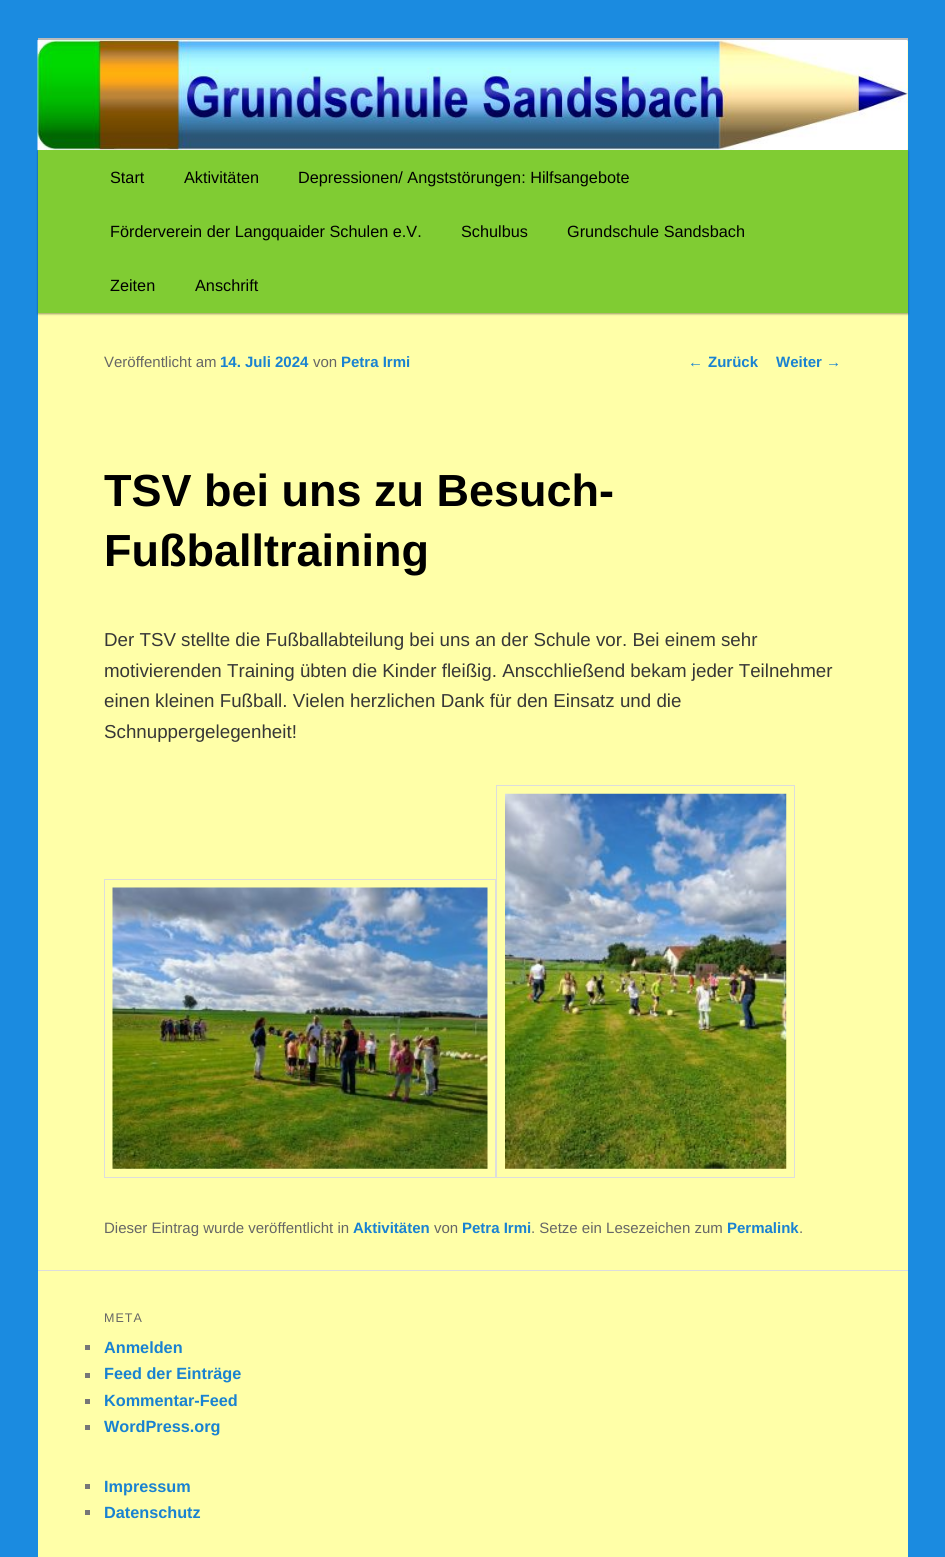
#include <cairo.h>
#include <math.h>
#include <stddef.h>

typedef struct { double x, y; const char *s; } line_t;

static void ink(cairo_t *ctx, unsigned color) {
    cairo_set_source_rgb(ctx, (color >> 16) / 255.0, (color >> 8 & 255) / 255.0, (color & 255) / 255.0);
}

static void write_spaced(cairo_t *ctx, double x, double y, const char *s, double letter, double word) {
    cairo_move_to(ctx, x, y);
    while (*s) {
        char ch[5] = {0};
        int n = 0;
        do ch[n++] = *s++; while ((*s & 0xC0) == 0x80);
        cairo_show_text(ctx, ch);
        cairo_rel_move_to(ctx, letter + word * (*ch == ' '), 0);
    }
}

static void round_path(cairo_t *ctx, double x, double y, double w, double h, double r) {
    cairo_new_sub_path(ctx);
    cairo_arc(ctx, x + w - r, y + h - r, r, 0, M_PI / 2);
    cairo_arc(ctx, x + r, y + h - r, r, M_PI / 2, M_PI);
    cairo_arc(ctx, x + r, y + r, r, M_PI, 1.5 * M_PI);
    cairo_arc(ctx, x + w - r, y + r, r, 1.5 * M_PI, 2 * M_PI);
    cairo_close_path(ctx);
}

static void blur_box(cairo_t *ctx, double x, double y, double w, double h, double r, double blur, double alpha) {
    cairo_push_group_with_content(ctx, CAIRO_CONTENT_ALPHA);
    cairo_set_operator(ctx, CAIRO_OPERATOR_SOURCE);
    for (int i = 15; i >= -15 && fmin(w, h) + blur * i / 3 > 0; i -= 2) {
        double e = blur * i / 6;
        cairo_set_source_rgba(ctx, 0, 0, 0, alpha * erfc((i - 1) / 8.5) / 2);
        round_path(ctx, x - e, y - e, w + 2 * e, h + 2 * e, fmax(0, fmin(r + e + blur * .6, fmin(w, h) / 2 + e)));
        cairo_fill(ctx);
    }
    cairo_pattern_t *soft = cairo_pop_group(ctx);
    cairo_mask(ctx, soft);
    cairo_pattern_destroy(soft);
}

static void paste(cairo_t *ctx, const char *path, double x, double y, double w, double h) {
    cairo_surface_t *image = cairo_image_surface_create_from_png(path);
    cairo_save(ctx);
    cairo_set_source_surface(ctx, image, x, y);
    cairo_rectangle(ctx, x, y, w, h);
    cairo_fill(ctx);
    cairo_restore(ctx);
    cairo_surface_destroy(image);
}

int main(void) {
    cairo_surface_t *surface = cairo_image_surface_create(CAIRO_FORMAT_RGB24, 945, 1557);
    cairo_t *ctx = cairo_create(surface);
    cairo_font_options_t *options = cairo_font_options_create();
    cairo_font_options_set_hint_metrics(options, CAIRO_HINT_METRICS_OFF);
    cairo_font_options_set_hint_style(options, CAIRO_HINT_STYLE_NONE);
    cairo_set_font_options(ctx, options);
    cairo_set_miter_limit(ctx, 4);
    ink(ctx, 0x1B8BE0);
    cairo_paint(ctx);
    ink(ctx, 0xFFFFA8);
    cairo_rectangle(ctx, 38, 41, 870, 1516);
    cairo_fill(ctx);
    ink(ctx, 0xBBBBBB);
    cairo_rectangle(ctx, 38, 38, 870, 3);
    cairo_fill(ctx);
    ink(ctx, 0x000000);
    blur_box(ctx, 38, 151, 870, 163, 0, 1, 0.4);
    paste(ctx, "media/1.png", 37, 40, 871, 110);
    ink(ctx, 0x80CC33);
    cairo_rectangle(ctx, 38, 150, 870, 163);
    cairo_fill(ctx);
    cairo_select_font_face(ctx, "Liberation Sans", CAIRO_FONT_SLANT_NORMAL, CAIRO_FONT_WEIGHT_NORMAL);
    cairo_set_font_size(ctx, 16.25);
    ink(ctx, 0x000000);
    {
        static const line_t items[] = {
            {110, 183, "Start"},
            {184, 183, "Aktivitäten"},
            {298, 183, "Depressionen/ Angststörungen: Hilfsangebote"},
            {110, 237, "Förderverein der Langquaider Schulen e.V."},
            {461, 237, "Schulbus"},
            {567, 237, "Grundschule Sandsbach"},
            {110, 291, "Zeiten"},
            {195, 291, "Anschrift"},
        };
        for (size_t i = 0; i < sizeof items / sizeof *items; i++) {
            cairo_move_to(ctx, items[i].x, items[i].y);
            cairo_show_text(ctx, items[i].s);
        }
    }
    cairo_set_font_size(ctx, 15);
    ink(ctx, 0x666666);
    cairo_move_to(ctx, 104, 367);
    cairo_show_text(ctx, "Veröffentlicht am");
    cairo_select_font_face(ctx, "Liberation Sans", CAIRO_FONT_SLANT_NORMAL, CAIRO_FONT_WEIGHT_BOLD);
    ink(ctx, 0x1982D1);
    cairo_move_to(ctx, 220, 367);
    cairo_show_text(ctx, "14. Juli 2024");
    cairo_select_font_face(ctx, "Liberation Sans", CAIRO_FONT_SLANT_NORMAL, CAIRO_FONT_WEIGHT_NORMAL);
    ink(ctx, 0x666666);
    cairo_move_to(ctx, 313, 367);
    cairo_show_text(ctx, "von");
    cairo_select_font_face(ctx, "Liberation Sans", CAIRO_FONT_SLANT_NORMAL, CAIRO_FONT_WEIGHT_BOLD);
    ink(ctx, 0x1982D1);
    cairo_move_to(ctx, 341, 367);
    cairo_show_text(ctx, "Petra Irmi");
    cairo_set_font_size(ctx, 45);
    ink(ctx, 0x000000);
    cairo_move_to(ctx, 104, 506);
    cairo_show_text(ctx, "TSV bei uns zu Besuch-");
    cairo_move_to(ctx, 104, 566);
    cairo_show_text(ctx, "Fußballtraining");
    cairo_select_font_face(ctx, "Liberation Sans", CAIRO_FONT_SLANT_NORMAL, CAIRO_FONT_WEIGHT_NORMAL);
    cairo_set_font_size(ctx, 18.75);
    ink(ctx, 0x373737);
    {
        static const line_t items[] = {
            {104, 646, "Der TSV stellte die Fußballabteilung bei uns an der Schule vor. Bei einem sehr"},
            {104, 677, "motivierenden Training übten die Kinder fleißig. Anscchließend bekam jeder Teilnehmer"},
            {104, 707, "einen kleinen Fußball. Vielen herzlichen Dank für den Einsatz und die"},
            {104, 738, "Schnuppergelegenheit!"},
        };
        for (size_t i = 0; i < sizeof items / sizeof *items; i++) {
            cairo_move_to(ctx, items[i].x, items[i].y);
            cairo_show_text(ctx, items[i].s);
        }
    }
    cairo_rectangle(ctx, 496.5, 785.5, 298, 392);
    ink(ctx, 0xDDDDDD);
    cairo_set_line_width(ctx, 1);
    cairo_stroke(ctx);
    cairo_rectangle(ctx, 104.5, 879.5, 391, 298);
    cairo_stroke(ctx);
    paste(ctx, "media/2.png", 505, 793, 282, 376);
    paste(ctx, "media/3.png", 112, 887, 376, 282);
    cairo_set_font_size(ctx, 15);
    ink(ctx, 0x666666);
    cairo_move_to(ctx, 104, 1233);
    cairo_show_text(ctx, "Dieser Eintrag wurde veröffentlicht in");
    cairo_select_font_face(ctx, "Liberation Sans", CAIRO_FONT_SLANT_NORMAL, CAIRO_FONT_WEIGHT_BOLD);
    ink(ctx, 0x1982D1);
    cairo_move_to(ctx, 353, 1233);
    cairo_show_text(ctx, "Aktivitäten");
    cairo_select_font_face(ctx, "Liberation Sans", CAIRO_FONT_SLANT_NORMAL, CAIRO_FONT_WEIGHT_NORMAL);
    ink(ctx, 0x666666);
    cairo_move_to(ctx, 434, 1233);
    cairo_show_text(ctx, "von");
    cairo_select_font_face(ctx, "Liberation Sans", CAIRO_FONT_SLANT_NORMAL, CAIRO_FONT_WEIGHT_BOLD);
    ink(ctx, 0x1982D1);
    cairo_move_to(ctx, 462, 1233);
    cairo_show_text(ctx, "Petra Irmi");
    cairo_select_font_face(ctx, "Liberation Sans", CAIRO_FONT_SLANT_NORMAL, CAIRO_FONT_WEIGHT_NORMAL);
    ink(ctx, 0x666666);
    cairo_move_to(ctx, 531, 1233);
    cairo_show_text(ctx, ". Setze ein Lesezeichen zum");
    cairo_select_font_face(ctx, "Liberation Sans", CAIRO_FONT_SLANT_NORMAL, CAIRO_FONT_WEIGHT_BOLD);
    ink(ctx, 0x1982D1);
    cairo_move_to(ctx, 727, 1233);
    cairo_show_text(ctx, "Permalink");
    cairo_select_font_face(ctx, "Liberation Sans", CAIRO_FONT_SLANT_NORMAL, CAIRO_FONT_WEIGHT_NORMAL);
    ink(ctx, 0x666666);
    cairo_move_to(ctx, 799, 1233);
    cairo_show_text(ctx, ".");
    ink(ctx, 0x1982D1);
    cairo_move_to(ctx, 688, 367);
    cairo_show_text(ctx, "←");
    cairo_select_font_face(ctx, "Liberation Sans", CAIRO_FONT_SLANT_NORMAL, CAIRO_FONT_WEIGHT_BOLD);
    cairo_move_to(ctx, 708, 367);
    cairo_show_text(ctx, "Zurück");
    cairo_move_to(ctx, 776, 367);
    cairo_show_text(ctx, "Weiter");
    cairo_select_font_face(ctx, "Liberation Sans", CAIRO_FONT_SLANT_NORMAL, CAIRO_FONT_WEIGHT_NORMAL);
    cairo_move_to(ctx, 826, 367);
    cairo_show_text(ctx, "→");
    ink(ctx, 0xDDDDDD);
    cairo_rectangle(ctx, 38, 1270, 870, 1);
    cairo_fill(ctx);
    cairo_set_font_size(ctx, 12.5);
    ink(ctx, 0x666666);
    write_spaced(ctx, 104, 1322, "META", 1, 0);
    ink(ctx, 0x777777);
    cairo_rectangle(ctx, 85, 1345, 5, 5);
    cairo_fill(ctx);
    cairo_select_font_face(ctx, "Liberation Sans", CAIRO_FONT_SLANT_NORMAL, CAIRO_FONT_WEIGHT_BOLD);
    cairo_set_font_size(ctx, 16.25);
    ink(ctx, 0x1982D1);
    cairo_move_to(ctx, 104, 1353);
    cairo_show_text(ctx, "Anmelden");
    ink(ctx, 0x777777);
    cairo_rectangle(ctx, 85, 1373, 5, 5);
    cairo_fill(ctx);
    ink(ctx, 0x1982D1);
    cairo_move_to(ctx, 104, 1379);
    cairo_show_text(ctx, "Feed der Einträge");
    ink(ctx, 0x777777);
    cairo_rectangle(ctx, 85, 1399, 5, 5);
    cairo_fill(ctx);
    ink(ctx, 0x1982D1);
    cairo_move_to(ctx, 104, 1406);
    cairo_show_text(ctx, "Kommentar-Feed");
    ink(ctx, 0x777777);
    cairo_rectangle(ctx, 85, 1425, 5, 5);
    cairo_fill(ctx);
    ink(ctx, 0x1982D1);
    cairo_move_to(ctx, 104, 1432);
    cairo_show_text(ctx, "WordPress.org");
    ink(ctx, 0x777777);
    cairo_rectangle(ctx, 85, 1484, 5, 5);
    cairo_fill(ctx);
    ink(ctx, 0x1982D1);
    cairo_move_to(ctx, 104, 1492);
    cairo_show_text(ctx, "Impressum");
    ink(ctx, 0x777777);
    cairo_rectangle(ctx, 85, 1510, 5, 5);
    cairo_fill(ctx);
    ink(ctx, 0x1982D1);
    cairo_move_to(ctx, 104, 1518);
    cairo_show_text(ctx, "Datenschutz");
    cairo_surface_write_to_png(surface, "image.png");
    cairo_font_options_destroy(options);
    cairo_destroy(ctx);
    cairo_surface_destroy(surface);
    return 0;
}
